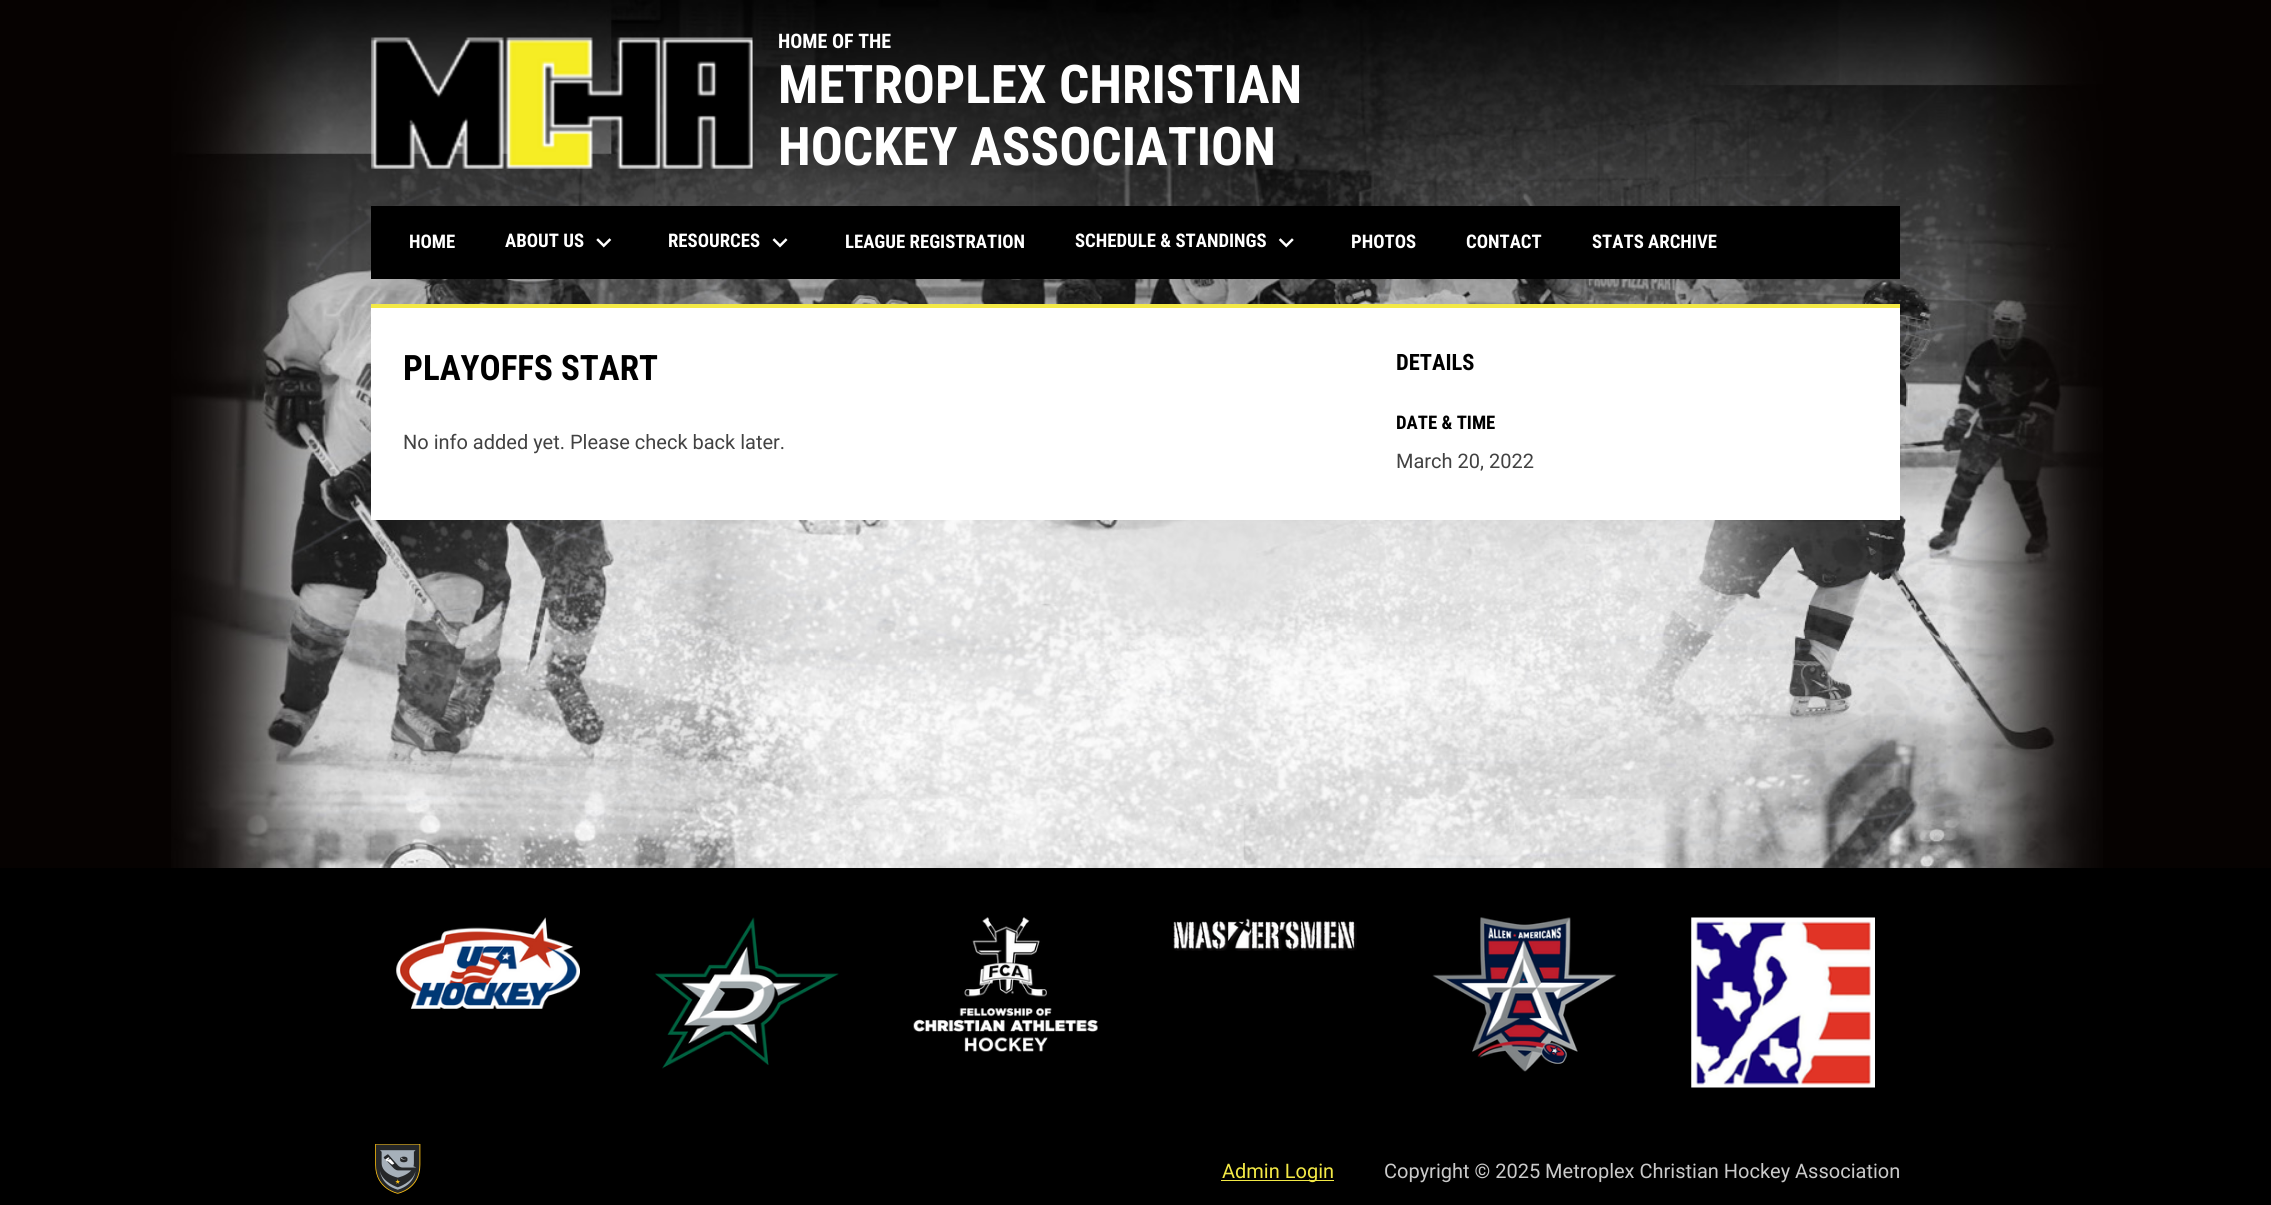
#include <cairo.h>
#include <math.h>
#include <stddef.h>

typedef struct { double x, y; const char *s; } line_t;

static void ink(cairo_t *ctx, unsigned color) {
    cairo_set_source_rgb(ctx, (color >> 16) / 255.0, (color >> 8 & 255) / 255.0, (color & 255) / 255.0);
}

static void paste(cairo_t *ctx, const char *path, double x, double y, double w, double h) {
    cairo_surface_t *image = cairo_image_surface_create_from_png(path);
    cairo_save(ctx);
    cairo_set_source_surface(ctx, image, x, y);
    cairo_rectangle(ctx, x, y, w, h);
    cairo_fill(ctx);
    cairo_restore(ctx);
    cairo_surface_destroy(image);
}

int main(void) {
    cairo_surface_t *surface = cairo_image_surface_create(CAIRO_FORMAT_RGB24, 2271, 1205);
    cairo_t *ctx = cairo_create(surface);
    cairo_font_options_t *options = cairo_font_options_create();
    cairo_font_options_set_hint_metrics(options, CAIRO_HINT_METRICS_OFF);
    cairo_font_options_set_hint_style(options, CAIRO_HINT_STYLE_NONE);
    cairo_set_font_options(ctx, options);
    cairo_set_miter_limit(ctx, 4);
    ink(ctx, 0x060201);
    cairo_paint(ctx);
    paste(ctx, "media/1.png", 171, 0, 1932, 868);
    paste(ctx, "media/2.png", 371, 37, 382, 132);
    cairo_select_font_face(ctx, "Roboto Condensed", CAIRO_FONT_SLANT_NORMAL, CAIRO_FONT_WEIGHT_BOLD);
    cairo_set_font_size(ctx, 20);
    ink(ctx, 0xFFFFFF);
    cairo_move_to(ctx, 778, 48);
    cairo_show_text(ctx, "HOME OF THE");
    cairo_set_font_size(ctx, 53.25);
    cairo_move_to(ctx, 778, 103);
    cairo_show_text(ctx, "METROPLEX CHRISTIAN");
    cairo_move_to(ctx, 778, 165);
    cairo_show_text(ctx, "HOCKEY ASSOCIATION");
    ink(ctx, 0x000000);
    cairo_rectangle(ctx, 371, 206, 1529, 73);
    cairo_fill(ctx);
    cairo_set_font_size(ctx, 18.75);
    ink(ctx, 0xFFFFFF);
    cairo_move_to(ctx, 409, 248);
    cairo_show_text(ctx, "HOME");
    cairo_move_to(ctx, 505, 247);
    cairo_show_text(ctx, "ABOUT US");
    paste(ctx, "media/3.png", 596, 238, 16, 10);
    cairo_move_to(ctx, 668, 247);
    cairo_show_text(ctx, "RESOURCES");
    paste(ctx, "media/4.png", 772, 238, 16, 10);
    cairo_move_to(ctx, 845, 248);
    cairo_show_text(ctx, "LEAGUE REGISTRATION");
    cairo_move_to(ctx, 1075, 247);
    cairo_show_text(ctx, "SCHEDULE & STANDINGS");
    paste(ctx, "media/5.png", 1278, 238, 16, 10);
    {
        static const line_t items[] = {
            {1351, 248, "PHOTOS"},
            {1466, 248, "CONTACT"},
            {1592, 248, "STATS ARCHIVE"},
        };
        for (size_t i = 0; i < sizeof items / sizeof *items; i++) {
            cairo_move_to(ctx, items[i].x, items[i].y);
            cairo_show_text(ctx, items[i].s);
        }
    }
    cairo_rectangle(ctx, 371, 308, 1529, 212);
    cairo_fill(ctx);
    ink(ctx, 0xF3E946);
    cairo_rectangle(ctx, 371, 304, 1529, 4);
    cairo_fill(ctx);
    cairo_set_font_size(ctx, 35);
    ink(ctx, 0x000000);
    cairo_move_to(ctx, 403, 380);
    cairo_show_text(ctx, "PLAYOFFS START");
    cairo_select_font_face(ctx, "Roboto", CAIRO_FONT_SLANT_NORMAL, CAIRO_FONT_WEIGHT_NORMAL);
    cairo_set_font_size(ctx, 20);
    ink(ctx, 0x424242);
    cairo_move_to(ctx, 403, 449);
    cairo_show_text(ctx, "No info added yet. Please check back later.");
    cairo_select_font_face(ctx, "Roboto Condensed", CAIRO_FONT_SLANT_NORMAL, CAIRO_FONT_WEIGHT_BOLD);
    cairo_set_font_size(ctx, 22.5);
    ink(ctx, 0x000000);
    cairo_move_to(ctx, 1396, 370);
    cairo_show_text(ctx, "DETAILS");
    cairo_set_font_size(ctx, 18.75);
    cairo_move_to(ctx, 1396, 429);
    cairo_show_text(ctx, "DATE & TIME");
    cairo_select_font_face(ctx, "Roboto", CAIRO_FONT_SLANT_NORMAL, CAIRO_FONT_WEIGHT_NORMAL);
    cairo_set_font_size(ctx, 20);
    ink(ctx, 0x424242);
    cairo_move_to(ctx, 1396, 468);
    cairo_show_text(ctx, "March 20, 2022");
    ink(ctx, 0x000000);
    cairo_rectangle(ctx, 0, 868, 2271, 337);
    cairo_fill(ctx);
    paste(ctx, "media/6.png", 396, 917, 184, 92);
    paste(ctx, "media/7.png", 655, 917, 184, 152);
    paste(ctx, "media/8.png", 913, 917, 185, 135);
    paste(ctx, "media/9.png", 1173, 918, 184, 33);
    paste(ctx, "media/10.png", 1432, 917, 185, 155);
    paste(ctx, "media/11.png", 1691, 917, 184, 171);
    paste(ctx, "media/12.png", 375, 1144, 46, 50);
    ink(ctx, 0xF3E946);
    cairo_rectangle(ctx, 1221, 1180, 113, 1);
    cairo_fill(ctx);
    cairo_move_to(ctx, 1222, 1178);
    cairo_show_text(ctx, "Admin Login");
    ink(ctx, 0xCACACA);
    cairo_move_to(ctx, 1384, 1178);
    cairo_show_text(ctx, "Copyright © 2025 Metroplex Christian Hockey Association");
    cairo_surface_write_to_png(surface, "image.png");
    cairo_font_options_destroy(options);
    cairo_destroy(ctx);
    cairo_surface_destroy(surface);
    return 0;
}
